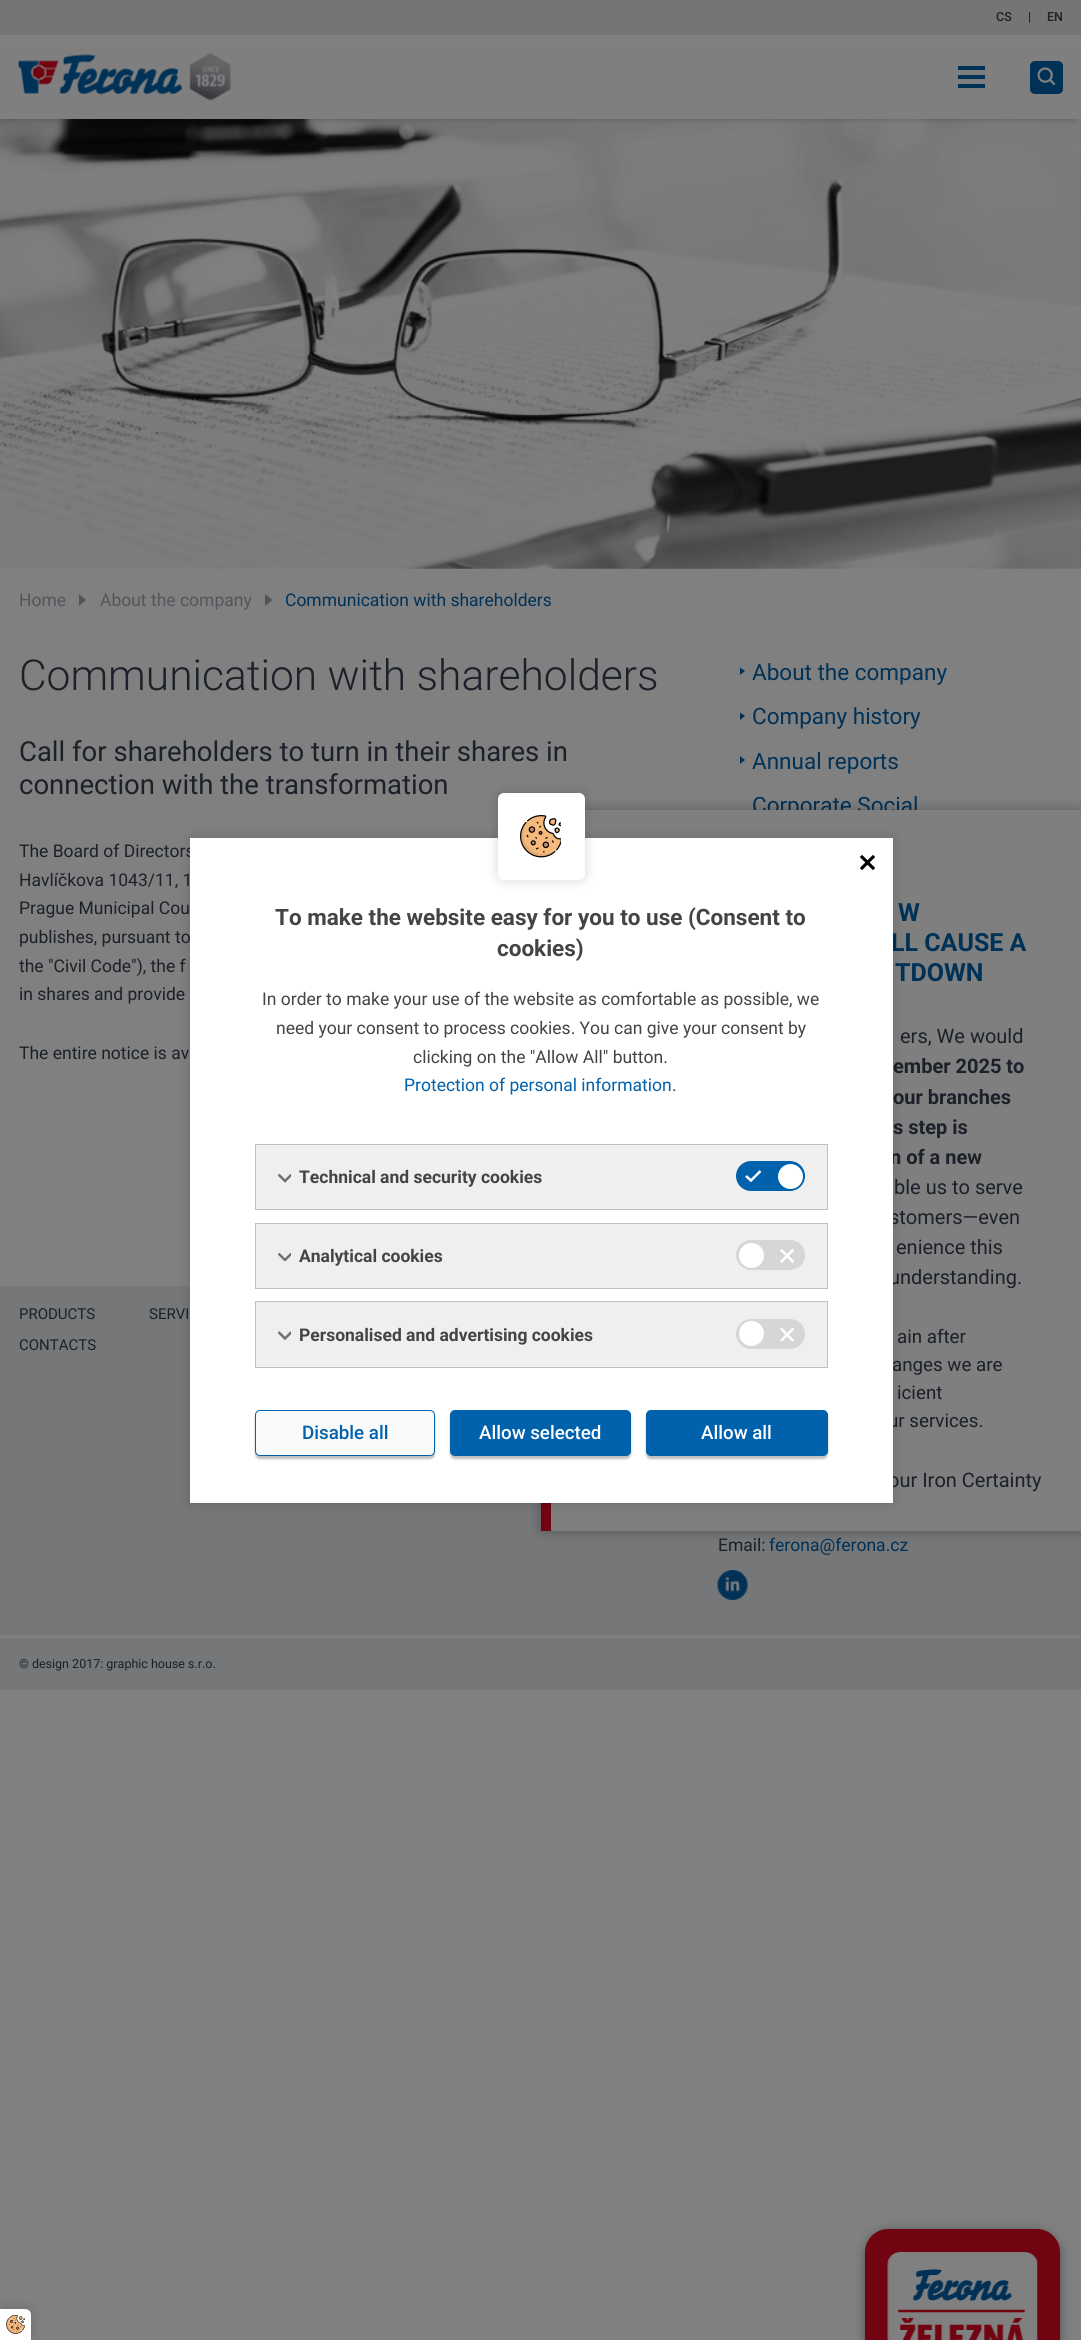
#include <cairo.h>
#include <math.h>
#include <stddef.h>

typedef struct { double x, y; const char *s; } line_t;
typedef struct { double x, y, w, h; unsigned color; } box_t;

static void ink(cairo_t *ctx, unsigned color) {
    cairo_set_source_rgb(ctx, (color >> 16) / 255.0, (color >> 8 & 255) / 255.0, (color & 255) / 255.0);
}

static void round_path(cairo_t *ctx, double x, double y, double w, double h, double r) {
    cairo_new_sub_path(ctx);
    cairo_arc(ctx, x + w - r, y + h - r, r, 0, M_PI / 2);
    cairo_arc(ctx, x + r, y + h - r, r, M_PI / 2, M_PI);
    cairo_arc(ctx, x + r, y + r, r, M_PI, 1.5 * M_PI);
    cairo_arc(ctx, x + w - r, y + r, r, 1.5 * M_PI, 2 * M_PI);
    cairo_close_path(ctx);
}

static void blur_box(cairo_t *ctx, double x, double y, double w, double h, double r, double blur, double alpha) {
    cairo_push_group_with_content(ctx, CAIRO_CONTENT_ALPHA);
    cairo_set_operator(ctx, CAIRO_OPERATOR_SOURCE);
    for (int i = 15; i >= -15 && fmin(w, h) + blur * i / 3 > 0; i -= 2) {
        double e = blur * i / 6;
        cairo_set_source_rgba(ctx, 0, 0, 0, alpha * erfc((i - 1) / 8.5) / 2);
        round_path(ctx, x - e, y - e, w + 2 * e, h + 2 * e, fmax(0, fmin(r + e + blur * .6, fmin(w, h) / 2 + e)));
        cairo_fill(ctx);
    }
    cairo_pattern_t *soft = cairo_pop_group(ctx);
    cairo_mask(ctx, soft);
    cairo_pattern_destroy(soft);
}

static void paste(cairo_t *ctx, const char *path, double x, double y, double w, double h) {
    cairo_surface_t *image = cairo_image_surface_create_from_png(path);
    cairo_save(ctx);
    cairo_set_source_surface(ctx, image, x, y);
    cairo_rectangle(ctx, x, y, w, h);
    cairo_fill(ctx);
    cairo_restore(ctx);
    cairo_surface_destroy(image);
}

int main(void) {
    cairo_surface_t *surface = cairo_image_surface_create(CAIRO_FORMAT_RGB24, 1081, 2340);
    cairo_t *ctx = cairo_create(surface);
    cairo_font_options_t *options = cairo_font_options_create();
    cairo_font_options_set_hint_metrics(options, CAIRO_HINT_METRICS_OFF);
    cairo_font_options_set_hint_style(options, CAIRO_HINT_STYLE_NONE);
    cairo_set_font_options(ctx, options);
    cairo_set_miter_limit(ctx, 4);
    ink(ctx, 0x808080);
    cairo_paint(ctx);
    ink(ctx, 0x757575);
    cairo_rectangle(ctx, 0, 0, 1081, 35);
    cairo_fill(ctx);
    cairo_select_font_face(ctx, "Roboto Medium", CAIRO_FONT_SLANT_NORMAL, CAIRO_FONT_WEIGHT_NORMAL);
    cairo_set_font_size(ctx, 12.5);
    ink(ctx, 0x1B2029);
    {
        static const line_t items[] = {
            {996, 21, "CS"},
            {1028, 21, "|"},
            {1047, 21, "EN"},
        };
        for (size_t i = 0; i < sizeof items / sizeof *items; i++) {
            cairo_move_to(ctx, items[i].x, items[i].y);
            cairo_show_text(ctx, items[i].s);
        }
    }
    paste(ctx, "media/3.png", 0, 119, 1081, 450);
    ink(ctx, 0x1B2029);
    blur_box(ctx, 6, 48, 1069, 71, 0, 3, 0.3);
    ink(ctx, 0x7F7F7F);
    cairo_rectangle(ctx, 2, 44, 1077, 75);
    cairo_fill(ctx);
    paste(ctx, "media/1.png", 18, 52, 213, 49);
    {
        static const box_t items[] = {
            {958, 75, 27, 4, 0x003157},
            {958, 66, 27, 4, 0x003157},
            {958, 84, 27, 4, 0x003157},
        };
        for (size_t i = 0; i < sizeof items / sizeof *items; i++) {
            ink(ctx, items[i].color);
            cairo_rectangle(ctx, items[i].x, items[i].y, items[i].w, items[i].h);
            cairo_fill(ctx);
        }
    }
    round_path(ctx, 1030, 61, 33, 33, 5);
    cairo_fill(ctx);
    paste(ctx, "media/2.png", 1037, 67, 18, 18);
    cairo_select_font_face(ctx, "Roboto", CAIRO_FONT_SLANT_NORMAL, CAIRO_FONT_WEIGHT_NORMAL);
    cairo_set_font_size(ctx, 17.5);
    ink(ctx, 0x54555C);
    cairo_move_to(ctx, 19, 606);
    cairo_show_text(ctx, "Home");
    cairo_new_path(ctx);
    cairo_move_to(ctx, 79, 606);
    cairo_line_to(ctx, 79, 594);
    cairo_line_to(ctx, 86, 600);
    cairo_close_path(ctx);
    cairo_fill(ctx);
    cairo_move_to(ctx, 100, 606);
    cairo_show_text(ctx, "About the company");
    cairo_new_path(ctx);
    cairo_move_to(ctx, 265, 606);
    cairo_line_to(ctx, 265, 594);
    cairo_line_to(ctx, 272.5, 600);
    cairo_close_path(ctx);
    cairo_fill(ctx);
    ink(ctx, 0x003157);
    cairo_move_to(ctx, 285, 606);
    cairo_show_text(ctx, "Communication with shareholders");
    cairo_select_font_face(ctx, "Roboto Light", CAIRO_FONT_SLANT_NORMAL, CAIRO_FONT_WEIGHT_NORMAL);
    cairo_set_font_size(ctx, 42.5);
    ink(ctx, 0x1B2029);
    cairo_move_to(ctx, 19, 690);
    cairo_show_text(ctx, "Communication with shareholders");
    cairo_select_font_face(ctx, "Roboto", CAIRO_FONT_SLANT_NORMAL, CAIRO_FONT_WEIGHT_NORMAL);
    cairo_set_font_size(ctx, 27.5);
    cairo_move_to(ctx, 19, 761);
    cairo_show_text(ctx, "Call for shareholders to turn in their shares in");
    cairo_move_to(ctx, 19, 794);
    cairo_show_text(ctx, "connection with the transformation");
    cairo_set_font_size(ctx, 17.5);
    {
        static const line_t items[] = {
            {19, 857, "The Board of Directors"},
            {19, 886, "Havlíčkova 1043/11, 1"},
            {19, 914, "Prague Municipal Cou"},
            {19, 943, "publishes, pursuant to"},
            {19, 972, "the \"Civil Code\"), the f"},
            {19, 1000, "in shares and provide"},
            {19, 1059, "The entire notice is av"},
        };
        for (size_t i = 0; i < sizeof items / sizeof *items; i++) {
            cairo_move_to(ctx, items[i].x, items[i].y);
            cairo_show_text(ctx, items[i].s);
        }
    }
    ink(ctx, 0x003157);
    cairo_new_path(ctx);
    cairo_move_to(ctx, 740, 675);
    cairo_line_to(ctx, 740, 667.5);
    cairo_line_to(ctx, 745, 671);
    cairo_close_path(ctx);
    cairo_fill(ctx);
    cairo_set_font_size(ctx, 22.5);
    cairo_move_to(ctx, 752, 680);
    cairo_show_text(ctx, "About the company");
    cairo_new_path(ctx);
    cairo_move_to(ctx, 740, 720);
    cairo_line_to(ctx, 740, 712.5);
    cairo_line_to(ctx, 745, 716);
    cairo_close_path(ctx);
    cairo_fill(ctx);
    cairo_move_to(ctx, 752, 724);
    cairo_show_text(ctx, "Company history");
    cairo_new_path(ctx);
    cairo_move_to(ctx, 740, 764);
    cairo_line_to(ctx, 740, 756);
    cairo_line_to(ctx, 745, 760);
    cairo_close_path(ctx);
    cairo_fill(ctx);
    cairo_move_to(ctx, 752, 769);
    cairo_show_text(ctx, "Annual reports");
    cairo_move_to(ctx, 752, 813);
    cairo_show_text(ctx, "Corporate Social");
    ink(ctx, 0x757779);
    cairo_rectangle(ctx, 0, 1286, 1081, 404);
    cairo_fill(ctx);
    cairo_set_font_size(ctx, 15);
    ink(ctx, 0x1B2029);
    {
        static const line_t items[] = {
            {19, 1319, "PRODUCTS"},
            {149, 1319, "SERVI"},
            {19, 1350, "CONTACTS"},
        };
        for (size_t i = 0; i < sizeof items / sizeof *items; i++) {
            cairo_move_to(ctx, items[i].x, items[i].y);
            cairo_show_text(ctx, items[i].s);
        }
    }
    cairo_set_font_size(ctx, 17.5);
    cairo_move_to(ctx, 718, 1551);
    cairo_show_text(ctx, "Email:");
    ink(ctx, 0x003157);
    cairo_move_to(ctx, 769, 1551);
    cairo_show_text(ctx, "ferona@ferona.cz");
    paste(ctx, "media/4.png", 717, 1570, 31, 30);
    ink(ctx, 0x7F7F7F);
    cairo_rectangle(ctx, 0, 1635, 1081, 3);
    cairo_fill(ctx);
    cairo_set_font_size(ctx, 12.5);
    ink(ctx, 0x1B2029);
    cairo_move_to(ctx, 19, 1668);
    cairo_show_text(ctx, "© design 2017: graphic house s.r.o.");
    ink(ctx, 0x000000);
    blur_box(ctx, 541, 810, 540, 721, 0, 6, 0.3);
    ink(ctx, 0x7F7F7F);
    cairo_rectangle(ctx, 551, 810, 530, 721);
    cairo_fill(ctx);
    ink(ctx, 0x720310);
    cairo_rectangle(ctx, 541, 1503, 10, 28);
    cairo_fill(ctx);
    cairo_select_font_face(ctx, "Roboto", CAIRO_FONT_SLANT_NORMAL, CAIRO_FONT_WEIGHT_BOLD);
    cairo_set_font_size(ctx, 25);
    ink(ctx, 0x003157);
    {
        static const line_t items[] = {
            {898, 921, "W"},
            {891, 951, "LL CAUSE A"},
            {895, 981, "TDOWN"},
        };
        for (size_t i = 0; i < sizeof items / sizeof *items; i++) {
            cairo_move_to(ctx, items[i].x, items[i].y);
            cairo_show_text(ctx, items[i].s);
        }
    }
    cairo_select_font_face(ctx, "Roboto", CAIRO_FONT_SLANT_NORMAL, CAIRO_FONT_WEIGHT_NORMAL);
    cairo_set_font_size(ctx, 20);
    ink(ctx, 0x1B2029);
    cairo_move_to(ctx, 900, 1043);
    cairo_show_text(ctx, "ers, We would");
    cairo_select_font_face(ctx, "Roboto", CAIRO_FONT_SLANT_NORMAL, CAIRO_FONT_WEIGHT_BOLD);
    {
        static const line_t items[] = {
            {893, 1073, "ember 2025 to"},
            {893, 1104, "our branches"},
            {893, 1134, "s step is"},
            {890, 1164, "n of a new"},
        };
        for (size_t i = 0; i < sizeof items / sizeof *items; i++) {
            cairo_move_to(ctx, items[i].x, items[i].y);
            cairo_show_text(ctx, items[i].s);
        }
    }
    cairo_select_font_face(ctx, "Roboto", CAIRO_FONT_SLANT_NORMAL, CAIRO_FONT_WEIGHT_NORMAL);
    {
        static const line_t items[] = {
            {894, 1194, "ble us to serve"},
            {889, 1224, "stomers—even"},
            {896, 1254, "enience this"},
            {889, 1284, "understanding."},
        };
        for (size_t i = 0; i < sizeof items / sizeof *items; i++) {
            cairo_move_to(ctx, items[i].x, items[i].y);
            cairo_show_text(ctx, items[i].s);
        }
    }
    cairo_set_font_size(ctx, 18.75);
    {
        static const line_t items[] = {
            {897, 1343, "ain after"},
            {892, 1371, "anges we are"},
            {897, 1399, "icient"},
            {888, 1427, "ur services."},
        };
        for (size_t i = 0; i < sizeof items / sizeof *items; i++) {
            cairo_move_to(ctx, items[i].x, items[i].y);
            cairo_show_text(ctx, items[i].s);
        }
    }
    cairo_set_font_size(ctx, 20);
    cairo_move_to(ctx, 888, 1487);
    cairo_show_text(ctx, "our Iron Certainty");
    ink(ctx, 0x1B2029);
    blur_box(ctx, 865, 2231, 195, 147, 23, 5, 0.5);
    ink(ctx, 0x720310);
    cairo_new_path(ctx);
    cairo_move_to(ctx, 888, 2229);
    cairo_line_to(ctx, 1037, 2229);
    cairo_curve_to(ctx, 1049.5, 2229, 1060, 2239.5, 1060, 2252);
    cairo_line_to(ctx, 1060, 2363);
    cairo_line_to(ctx, 865, 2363);
    cairo_line_to(ctx, 865, 2252);
    cairo_curve_to(ctx, 865, 2239.5, 875.5, 2229, 888, 2229);
    cairo_close_path(ctx);
    cairo_fill(ctx);
    paste(ctx, "media/5.png", 887, 2252, 151, 88);
    ink(ctx, 0x000000);
    blur_box(ctx, 190, 838, 703, 665, 0, 6, 0.16);
    ink(ctx, 0xFFFFFF);
    cairo_rectangle(ctx, 190, 838, 703, 665);
    cairo_fill(ctx);
    ink(ctx, 0x000000);
    blur_box(ctx, 498, 793, 87, 87, 6, 6, 0.16);
    ink(ctx, 0xFFFFFF);
    round_path(ctx, 498, 793, 87, 87, 6);
    cairo_fill(ctx);
    paste(ctx, "media/6.png", 520, 815, 41, 43);
    paste(ctx, "media/7.png", 860, 855, 15, 15);
    cairo_select_font_face(ctx, "Roboto", CAIRO_FONT_SLANT_NORMAL, CAIRO_FONT_WEIGHT_BOLD);
    cairo_set_font_size(ctx, 22.5);
    ink(ctx, 0x444444);
    cairo_move_to(ctx, 275, 925);
    cairo_show_text(ctx, "To make the website easy for you to use (Consent to");
    cairo_move_to(ctx, 497, 956);
    cairo_show_text(ctx, "cookies)");
    cairo_select_font_face(ctx, "Roboto", CAIRO_FONT_SLANT_NORMAL, CAIRO_FONT_WEIGHT_NORMAL);
    cairo_set_font_size(ctx, 17.5);
    {
        static const line_t items[] = {
            {262, 1005, "In order to make your use of the website as comfortable as possible, we"},
            {276, 1034, "need your consent to process cookies. You can give your consent by"},
            {413, 1063, "clicking on the \"Allow All\" button."},
        };
        for (size_t i = 0; i < sizeof items / sizeof *items; i++) {
            cairo_move_to(ctx, items[i].x, items[i].y);
            cairo_show_text(ctx, items[i].s);
        }
    }
    ink(ctx, 0x0061AD);
    cairo_move_to(ctx, 404, 1091);
    cairo_show_text(ctx, "Protection of personal information");
    ink(ctx, 0x444444);
    cairo_move_to(ctx, 672, 1091);
    cairo_show_text(ctx, ".");
    ink(ctx, 0xEFEFEF);
    cairo_rectangle(ctx, 255.5, 1144.5, 572, 65);
    cairo_fill_preserve(ctx);
    ink(ctx, 0xBFBFBF);
    cairo_set_line_width(ctx, 1);
    cairo_stroke(ctx);
    cairo_save(ctx);
    cairo_rectangle(ctx, 278, 1174, 13, 9);
    cairo_clip(ctx);
    cairo_new_path(ctx);
    cairo_move_to(ctx, 291.5, 1174.5);
    cairo_line_to(ctx, 285, 1181);
    cairo_line_to(ctx, 278.5, 1174.5);
    ink(ctx, 0x707070);
    cairo_set_line_width(ctx, 2.5);
    cairo_stroke(ctx);
    cairo_restore(ctx);
    cairo_select_font_face(ctx, "Roboto", CAIRO_FONT_SLANT_NORMAL, CAIRO_FONT_WEIGHT_BOLD);
    ink(ctx, 0x444444);
    cairo_move_to(ctx, 299, 1183);
    cairo_show_text(ctx, "Technical and security cookies");
    ink(ctx, 0x0061AD);
    round_path(ctx, 736, 1161, 69, 30, 15);
    cairo_fill(ctx);
    cairo_new_path(ctx);
    cairo_move_to(ctx, 746, 1176);
    cairo_line_to(ctx, 751, 1180.5);
    cairo_line_to(ctx, 760.5, 1171);
    ink(ctx, 0xFFFFFF);
    cairo_set_line_width(ctx, 2.5);
    cairo_stroke(ctx);
    paste(ctx, "media/8.png", 780, 1183, 1, 1);
    cairo_arc(ctx, 790.5, 1176.5, 12.5, 0, 2 * M_PI);
    cairo_fill(ctx);
    ink(ctx, 0xEFEFEF);
    cairo_rectangle(ctx, 255.5, 1223.5, 572, 65);
    cairo_fill_preserve(ctx);
    ink(ctx, 0xBFBFBF);
    cairo_set_line_width(ctx, 1);
    cairo_stroke(ctx);
    cairo_save(ctx);
    cairo_rectangle(ctx, 278, 1253, 13, 8);
    cairo_clip(ctx);
    cairo_new_path(ctx);
    cairo_move_to(ctx, 291.5, 1253.5);
    cairo_line_to(ctx, 285, 1260);
    cairo_line_to(ctx, 278.5, 1253.5);
    ink(ctx, 0x707070);
    cairo_set_line_width(ctx, 2.5);
    cairo_stroke(ctx);
    cairo_restore(ctx);
    ink(ctx, 0x444444);
    cairo_move_to(ctx, 299, 1262);
    cairo_show_text(ctx, "Analytical cookies");
    ink(ctx, 0xD6D6D6);
    round_path(ctx, 736, 1240, 69, 30, 15);
    cairo_fill(ctx);
    ink(ctx, 0xFFFFFF);
    cairo_arc(ctx, 751.5, 1255.5, 12.5, 0, 2 * M_PI);
    cairo_fill(ctx);
    paste(ctx, "media/9.png", 780, 1249, 14, 14);
    ink(ctx, 0xEFEFEF);
    cairo_rectangle(ctx, 255.5, 1301.5, 572, 66);
    cairo_fill_preserve(ctx);
    ink(ctx, 0xBFBFBF);
    cairo_stroke(ctx);
    cairo_save(ctx);
    cairo_rectangle(ctx, 278, 1331, 13, 9);
    cairo_clip(ctx);
    cairo_new_path(ctx);
    cairo_move_to(ctx, 291.5, 1332);
    cairo_line_to(ctx, 285, 1338.5);
    cairo_line_to(ctx, 278.5, 1332);
    ink(ctx, 0x707070);
    cairo_set_line_width(ctx, 2.5);
    cairo_stroke(ctx);
    cairo_restore(ctx);
    ink(ctx, 0x444444);
    cairo_move_to(ctx, 299, 1341);
    cairo_show_text(ctx, "Personalised and advertising cookies");
    ink(ctx, 0xD6D6D6);
    round_path(ctx, 736, 1319, 69, 30, 15);
    cairo_fill(ctx);
    ink(ctx, 0xFFFFFF);
    cairo_arc(ctx, 751.5, 1333.5, 12.5, 0, 2 * M_PI);
    cairo_fill(ctx);
    paste(ctx, "media/10.png", 780, 1328, 14, 13);
    ink(ctx, 0x000000);
    blur_box(ctx, 255, 1413, 180, 46, 5, 1, 0.25);
    ink(ctx, 0xFAFAFA);
    round_path(ctx, 255.5, 1410.5, 179, 45, 4.5);
    cairo_fill_preserve(ctx);
    ink(ctx, 0x0061AD);
    cairo_stroke(ctx);
    cairo_select_font_face(ctx, "Roboto Medium", CAIRO_FONT_SLANT_NORMAL, CAIRO_FONT_WEIGHT_NORMAL);
    cairo_set_font_size(ctx, 18.75);
    cairo_move_to(ctx, 302, 1439);
    cairo_show_text(ctx, "Disable all");
    ink(ctx, 0x000000);
    blur_box(ctx, 450, 1413, 181, 46, 5, 1, 0.25);
    ink(ctx, 0x0061AD);
    round_path(ctx, 450.5, 1410.5, 180, 45, 4.5);
    cairo_fill_preserve(ctx);
    cairo_stroke(ctx);
    ink(ctx, 0xFFFFFF);
    cairo_move_to(ctx, 479, 1439);
    cairo_show_text(ctx, "Allow selected");
    ink(ctx, 0x000000);
    blur_box(ctx, 646, 1413, 182, 46, 5, 1, 0.25);
    ink(ctx, 0x0061AD);
    round_path(ctx, 646.5, 1410.5, 181, 45, 4.5);
    cairo_fill_preserve(ctx);
    cairo_stroke(ctx);
    ink(ctx, 0xFFFFFF);
    cairo_move_to(ctx, 701, 1439);
    cairo_show_text(ctx, "Allow all");
    ink(ctx, 0x000000);
    blur_box(ctx, 0, 2309, 31, 31, 6, 6, 0.16);
    ink(ctx, 0xFFFFFF);
    cairo_new_path(ctx);
    cairo_move_to(ctx, 0, 2309);
    cairo_line_to(ctx, 25, 2309);
    cairo_curve_to(ctx, 28.5, 2309, 31, 2311.5, 31, 2315);
    cairo_line_to(ctx, 31, 2340);
    cairo_line_to(ctx, 0, 2340);
    cairo_close_path(ctx);
    cairo_fill(ctx);
    paste(ctx, "media/11.png", 6, 2315, 19, 19);
    cairo_surface_write_to_png(surface, "image.png");
    cairo_font_options_destroy(options);
    cairo_destroy(ctx);
    cairo_surface_destroy(surface);
    return 0;
}
